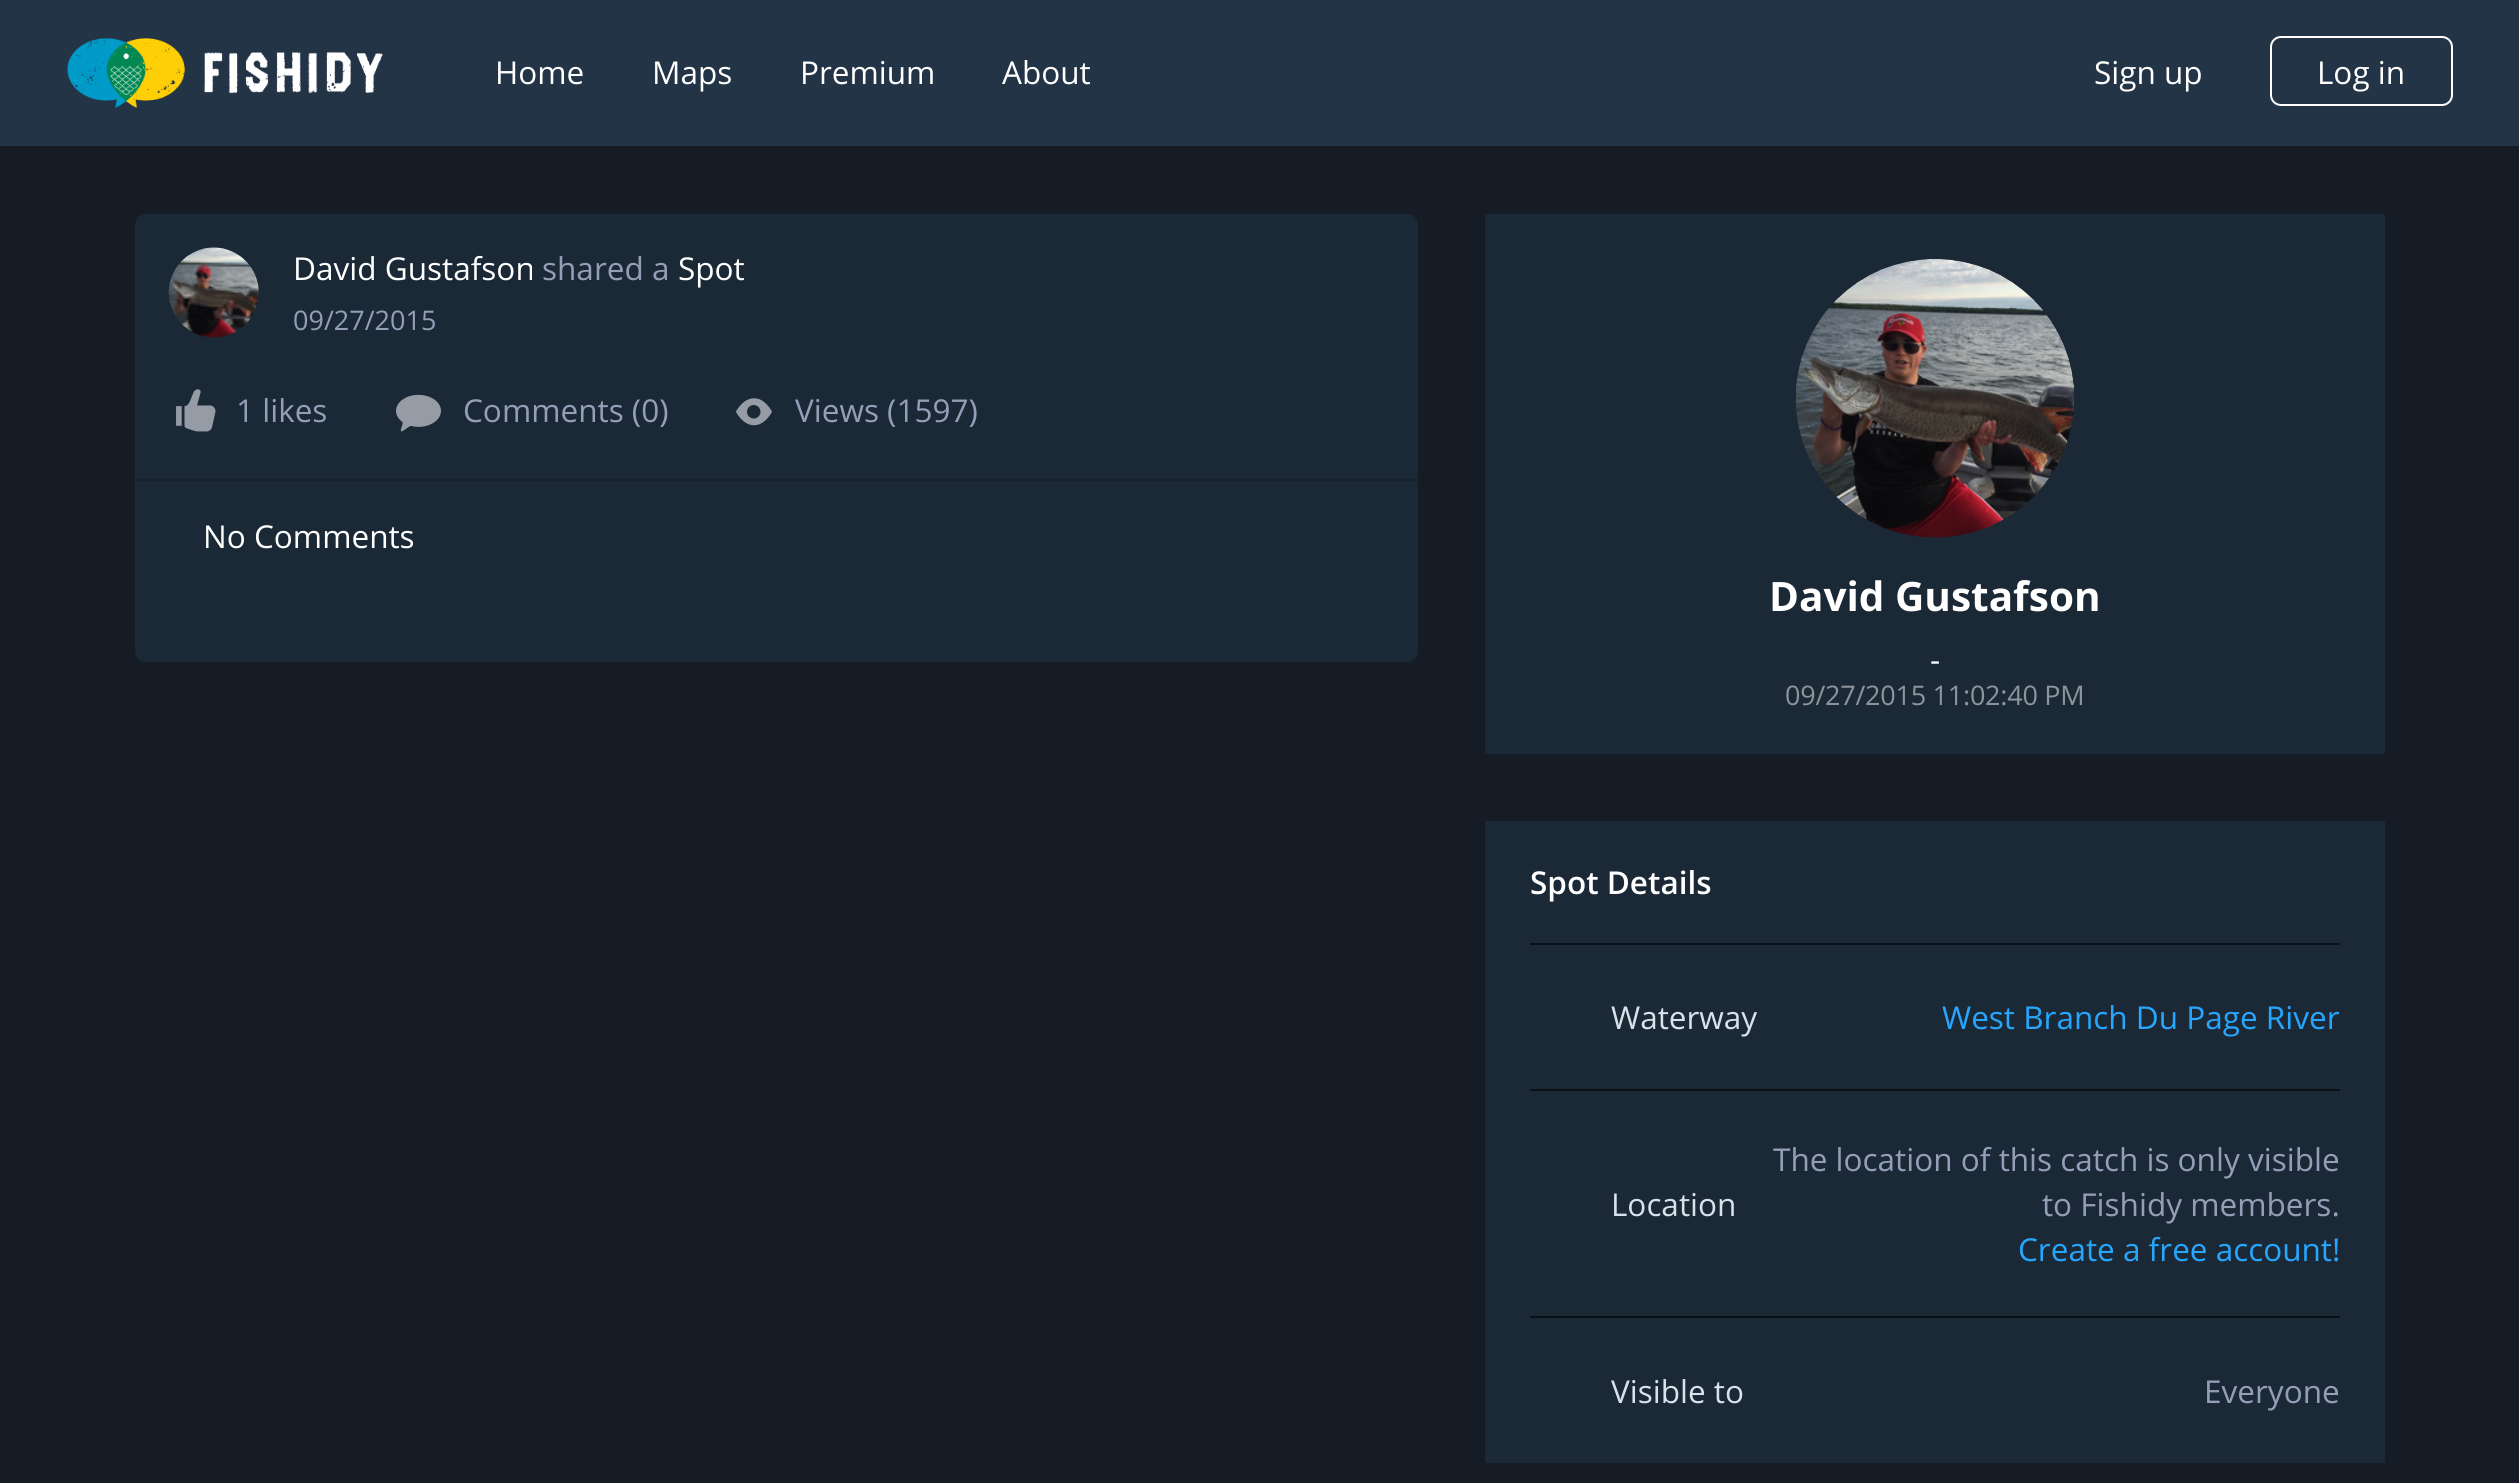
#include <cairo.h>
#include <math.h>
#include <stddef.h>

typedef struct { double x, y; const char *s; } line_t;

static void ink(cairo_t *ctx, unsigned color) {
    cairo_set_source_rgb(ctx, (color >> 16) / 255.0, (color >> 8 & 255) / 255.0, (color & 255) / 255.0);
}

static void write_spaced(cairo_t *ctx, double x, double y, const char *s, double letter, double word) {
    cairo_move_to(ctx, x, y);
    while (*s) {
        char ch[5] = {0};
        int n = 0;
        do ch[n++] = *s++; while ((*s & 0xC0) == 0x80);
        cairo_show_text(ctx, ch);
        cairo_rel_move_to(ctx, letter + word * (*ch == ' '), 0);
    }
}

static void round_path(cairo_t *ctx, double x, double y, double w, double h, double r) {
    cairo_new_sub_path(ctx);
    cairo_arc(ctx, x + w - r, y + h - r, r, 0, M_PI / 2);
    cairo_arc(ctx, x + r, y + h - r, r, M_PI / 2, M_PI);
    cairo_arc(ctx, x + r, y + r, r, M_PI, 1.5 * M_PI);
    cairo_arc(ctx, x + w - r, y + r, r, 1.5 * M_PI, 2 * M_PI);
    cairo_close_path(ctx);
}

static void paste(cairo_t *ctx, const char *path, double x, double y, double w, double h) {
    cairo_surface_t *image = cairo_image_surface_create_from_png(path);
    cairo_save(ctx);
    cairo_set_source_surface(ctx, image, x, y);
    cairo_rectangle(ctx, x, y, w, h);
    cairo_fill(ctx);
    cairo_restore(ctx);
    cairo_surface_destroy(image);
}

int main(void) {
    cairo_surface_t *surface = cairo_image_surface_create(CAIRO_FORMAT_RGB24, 2519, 1483);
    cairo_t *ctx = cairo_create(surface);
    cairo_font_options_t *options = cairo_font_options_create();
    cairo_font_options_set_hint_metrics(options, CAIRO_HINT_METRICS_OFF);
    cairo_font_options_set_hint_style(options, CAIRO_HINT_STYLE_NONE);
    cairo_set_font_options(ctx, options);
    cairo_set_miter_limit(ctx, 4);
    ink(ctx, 0x151C26);
    cairo_paint(ctx);
    ink(ctx, 0x233446);
    cairo_rectangle(ctx, 0, 0, 2519, 146);
    cairo_fill(ctx);
    paste(ctx, "media/1.png", 67, 38, 316, 70);
    cairo_select_font_face(ctx, "Open Sans", CAIRO_FONT_SLANT_NORMAL, CAIRO_FONT_WEIGHT_NORMAL);
    cairo_set_font_size(ctx, 31.5);
    ink(ctx, 0xFFFFFF);
    {
        static const line_t items[] = {
            {495, 84, "Home"},
            {652, 84, "Maps"},
            {800, 84, "Premium"},
            {1002, 84, "About"},
            {2094, 84, "Sign up"},
        };
        for (size_t i = 0; i < sizeof items / sizeof *items; i++) {
            cairo_move_to(ctx, items[i].x, items[i].y);
            cairo_show_text(ctx, items[i].s);
        }
    }
    round_path(ctx, 2271, 37, 181, 68, 10);
    cairo_stroke(ctx);
    cairo_move_to(ctx, 2317, 84);
    cairo_show_text(ctx, "Log in");
    ink(ctx, 0x1B2936);
    round_path(ctx, 135, 214, 1283, 448, 11);
    cairo_fill(ctx);
    paste(ctx, "media/2.png", 168, 247, 91, 91);
    ink(ctx, 0xFFFFFF);
    cairo_move_to(ctx, 293, 280);
    cairo_show_text(ctx, "David Gustafson");
    ink(ctx, 0x949FB7);
    cairo_move_to(ctx, 542, 280);
    cairo_show_text(ctx, "shared a");
    ink(ctx, 0xFFFFFF);
    cairo_move_to(ctx, 678, 280);
    cairo_show_text(ctx, "Spot");
    cairo_set_font_size(ctx, 27);
    ink(ctx, 0x949FB7);
    cairo_move_to(ctx, 293, 330);
    cairo_show_text(ctx, "09/27/2015");
    ink(ctx, 0x17212C);
    cairo_rectangle(ctx, 135, 479, 1283, 2);
    cairo_fill(ctx);
    paste(ctx, "media/3.png", 176, 389, 40, 43);
    cairo_set_font_size(ctx, 31.5);
    ink(ctx, 0x949FB7);
    cairo_move_to(ctx, 236, 422);
    cairo_show_text(ctx, "1 likes");
    paste(ctx, "media/4.png", 396, 394, 45, 38);
    cairo_move_to(ctx, 463, 422);
    cairo_show_text(ctx, "Comments (0)");
    paste(ctx, "media/5.png", 736, 398, 36, 28);
    cairo_move_to(ctx, 795, 422);
    cairo_show_text(ctx, "Views (1597)");
    ink(ctx, 0xFFFFFF);
    cairo_move_to(ctx, 203, 548);
    cairo_show_text(ctx, "No Comments");
    ink(ctx, 0x1B2936);
    cairo_rectangle(ctx, 1485, 214, 900, 540);
    cairo_fill(ctx);
    paste(ctx, "media/6.png", 1795, 259, 279, 279);
    cairo_select_font_face(ctx, "Open Sans", CAIRO_FONT_SLANT_NORMAL, CAIRO_FONT_WEIGHT_BOLD);
    cairo_set_font_size(ctx, 40.5);
    ink(ctx, 0xFFFFFF);
    cairo_move_to(ctx, 1769, 611);
    cairo_show_text(ctx, "David Gustafson");
    cairo_select_font_face(ctx, "Open Sans", CAIRO_FONT_SLANT_NORMAL, CAIRO_FONT_WEIGHT_NORMAL);
    cairo_set_font_size(ctx, 31.5);
    cairo_move_to(ctx, 1930, 671);
    cairo_show_text(ctx, "-");
    cairo_set_font_size(ctx, 27);
    ink(ctx, 0x8D949B);
    write_spaced(ctx, 1785, 705, "09/27/2015 11:02:40 PM", -0.25, 0);
    ink(ctx, 0x1B2936);
    cairo_rectangle(ctx, 1485, 821, 900, 642);
    cairo_fill(ctx);
    cairo_select_font_face(ctx, "Open Sans SemiBold", CAIRO_FONT_SLANT_NORMAL, CAIRO_FONT_WEIGHT_NORMAL);
    cairo_set_font_size(ctx, 31.5);
    ink(ctx, 0xFFFFFF);
    cairo_move_to(ctx, 1530, 894);
    cairo_show_text(ctx, "Spot Details");
    ink(ctx, 0x0B1016);
    cairo_rectangle(ctx, 1530, 943, 810, 2);
    cairo_fill(ctx);
    cairo_select_font_face(ctx, "Open Sans", CAIRO_FONT_SLANT_NORMAL, CAIRO_FONT_WEIGHT_NORMAL);
    ink(ctx, 0xD8E2EB);
    cairo_move_to(ctx, 1611, 1029);
    cairo_show_text(ctx, "Waterway");
    ink(ctx, 0x27A6FE);
    cairo_move_to(ctx, 1942, 1029);
    cairo_show_text(ctx, "West Branch Du Page River");
    ink(ctx, 0x0B1016);
    cairo_rectangle(ctx, 1530, 1089, 810, 2);
    cairo_fill(ctx);
    ink(ctx, 0xD8E2EB);
    cairo_move_to(ctx, 1611, 1216);
    cairo_show_text(ctx, "Location");
    ink(ctx, 0x949FB7);
    cairo_move_to(ctx, 1773, 1171);
    cairo_show_text(ctx, "The location of this catch is only visible");
    cairo_move_to(ctx, 2042, 1216);
    cairo_show_text(ctx, "to Fishidy members.");
    ink(ctx, 0x27A6FE);
    cairo_move_to(ctx, 2018, 1261);
    cairo_show_text(ctx, "Create a free account!");
    ink(ctx, 0x0B1016);
    cairo_rectangle(ctx, 1530, 1316, 810, 2);
    cairo_fill(ctx);
    ink(ctx, 0xD8E2EB);
    cairo_move_to(ctx, 1611, 1403);
    cairo_show_text(ctx, "Visible to");
    ink(ctx, 0x949FB7);
    cairo_move_to(ctx, 2204, 1403);
    cairo_show_text(ctx, "Everyone");
    cairo_surface_write_to_png(surface, "image.png");
    cairo_font_options_destroy(options);
    cairo_destroy(ctx);
    cairo_surface_destroy(surface);
    return 0;
}
